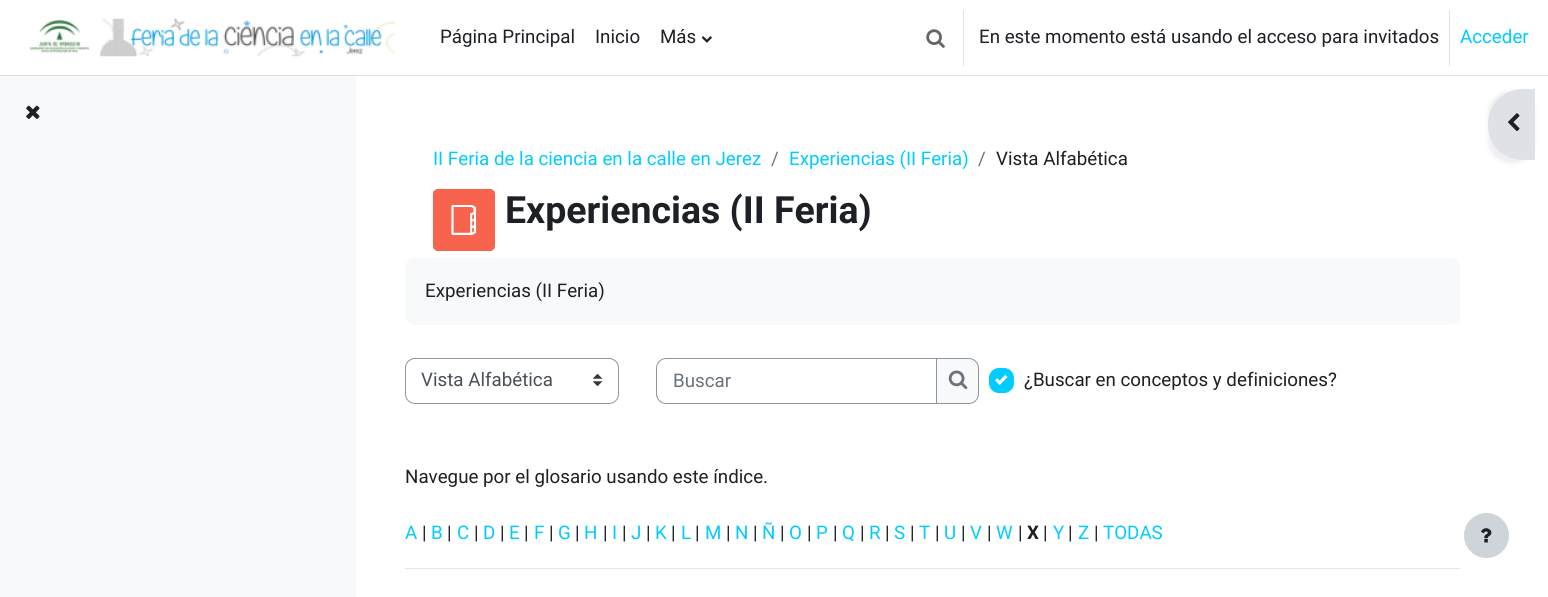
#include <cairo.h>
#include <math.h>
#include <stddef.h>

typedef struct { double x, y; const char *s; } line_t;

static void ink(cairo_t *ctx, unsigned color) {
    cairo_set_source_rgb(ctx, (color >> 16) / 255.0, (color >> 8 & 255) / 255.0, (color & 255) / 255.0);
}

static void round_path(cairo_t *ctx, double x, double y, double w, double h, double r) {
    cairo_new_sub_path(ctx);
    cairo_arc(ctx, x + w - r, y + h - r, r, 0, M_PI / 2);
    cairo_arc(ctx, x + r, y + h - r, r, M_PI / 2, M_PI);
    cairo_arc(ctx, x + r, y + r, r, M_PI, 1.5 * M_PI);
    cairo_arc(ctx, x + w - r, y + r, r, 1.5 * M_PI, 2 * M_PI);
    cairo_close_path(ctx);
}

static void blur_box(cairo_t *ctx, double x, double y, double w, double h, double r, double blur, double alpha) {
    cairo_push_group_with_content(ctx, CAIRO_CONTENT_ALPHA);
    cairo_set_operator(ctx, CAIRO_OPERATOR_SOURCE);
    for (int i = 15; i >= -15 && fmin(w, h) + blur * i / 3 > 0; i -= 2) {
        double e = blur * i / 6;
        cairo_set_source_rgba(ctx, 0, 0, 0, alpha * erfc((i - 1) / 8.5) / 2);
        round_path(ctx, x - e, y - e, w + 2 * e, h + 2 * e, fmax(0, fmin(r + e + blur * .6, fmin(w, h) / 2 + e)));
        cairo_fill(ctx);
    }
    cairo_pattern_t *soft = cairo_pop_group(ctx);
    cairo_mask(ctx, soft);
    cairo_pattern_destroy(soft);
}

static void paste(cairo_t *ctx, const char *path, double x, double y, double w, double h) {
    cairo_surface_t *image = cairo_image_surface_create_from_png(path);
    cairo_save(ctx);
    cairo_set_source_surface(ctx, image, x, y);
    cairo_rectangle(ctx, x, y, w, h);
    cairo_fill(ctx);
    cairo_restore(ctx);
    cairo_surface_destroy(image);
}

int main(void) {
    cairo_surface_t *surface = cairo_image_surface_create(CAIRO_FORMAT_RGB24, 1548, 597);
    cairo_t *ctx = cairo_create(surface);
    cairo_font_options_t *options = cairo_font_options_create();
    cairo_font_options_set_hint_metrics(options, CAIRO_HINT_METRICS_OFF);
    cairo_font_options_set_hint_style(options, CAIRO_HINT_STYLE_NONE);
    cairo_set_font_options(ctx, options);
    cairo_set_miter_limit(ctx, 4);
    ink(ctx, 0xFFFFFF);
    cairo_paint(ctx);
    ink(ctx, 0xDEE2E6);
    cairo_rectangle(ctx, 0, 75, 1548, 1);
    cairo_fill(ctx);
    paste(ctx, "media/1.png", 29, 18, 366, 39);
    cairo_select_font_face(ctx, "Roboto", CAIRO_FONT_SLANT_NORMAL, CAIRO_FONT_WEIGHT_NORMAL);
    cairo_set_font_size(ctx, 18.75);
    ink(ctx, 0x1D2125);
    {
        static const line_t items[] = {
            {440, 43, "Página Principal"},
            {595, 43, "Inicio"},
            {660, 43, "Más"},
        };
        for (size_t i = 0; i < sizeof items / sizeof *items; i++) {
            cairo_move_to(ctx, items[i].x, items[i].y);
            cairo_show_text(ctx, items[i].s);
        }
    }
    paste(ctx, "media/2.png", 701, 36, 11, 7);
    paste(ctx, "media/3.png", 926, 29, 19, 19);
    ink(ctx, 0xDEE2E6);
    cairo_rectangle(ctx, 963, 10, 1, 56);
    cairo_fill(ctx);
    ink(ctx, 0x1D2125);
    cairo_move_to(ctx, 979, 43);
    cairo_show_text(ctx, "En este momento está usando el acceso para invitados");
    ink(ctx, 0xDEE2E6);
    cairo_rectangle(ctx, 1449, 10, 1, 56);
    cairo_fill(ctx);
    ink(ctx, 0x00CCFF);
    cairo_move_to(ctx, 1460, 43);
    cairo_show_text(ctx, "Acceder");
    ink(ctx, 0xF8F9FA);
    cairo_rectangle(ctx, 0, 76, 356, 521);
    cairo_fill(ctx);
    paste(ctx, "media/4.png", 26, 105, 14, 14);
    ink(ctx, 0x000000);
    blur_box(ctx, 1488, 91, 47, 72, 35, 2.5, 0.07);
    ink(ctx, 0xDEE2E6);
    cairo_new_path(ctx);
    cairo_move_to(ctx, 1523, 89);
    cairo_line_to(ctx, 1535, 89);
    cairo_line_to(ctx, 1535, 160);
    cairo_line_to(ctx, 1523, 160);
    cairo_curve_to(ctx, 1503.5, 160, 1488, 144.5, 1488, 125);
    cairo_line_to(ctx, 1488, 124);
    cairo_curve_to(ctx, 1488, 104.5, 1503.5, 89, 1523, 89);
    cairo_close_path(ctx);
    cairo_fill(ctx);
    paste(ctx, "media/5.png", 1508, 113, 12, 19);
    ink(ctx, 0x00CCFF);
    cairo_move_to(ctx, 433, 165);
    cairo_show_text(ctx, "II Feria de la ciencia en la calle en Jerez");
    ink(ctx, 0x6A737B);
    cairo_move_to(ctx, 771, 165);
    cairo_show_text(ctx, "/");
    ink(ctx, 0x00CCFF);
    cairo_move_to(ctx, 789, 165);
    cairo_show_text(ctx, "Experiencias (II Feria)");
    ink(ctx, 0x6A737B);
    cairo_move_to(ctx, 978, 165);
    cairo_show_text(ctx, "/");
    ink(ctx, 0x1D2125);
    cairo_move_to(ctx, 996, 165);
    cairo_show_text(ctx, "Vista Alfabética");
    ink(ctx, 0xF7634D);
    round_path(ctx, 433, 189, 62, 62, 5);
    cairo_fill(ctx);
    paste(ctx, "media/6.png", 451, 205, 26, 30);
    cairo_select_font_face(ctx, "Roboto", CAIRO_FONT_SLANT_NORMAL, CAIRO_FONT_WEIGHT_BOLD);
    cairo_set_font_size(ctx, 37.5);
    ink(ctx, 0x1D2125);
    cairo_move_to(ctx, 505, 223);
    cairo_show_text(ctx, "Experiencias (II Feria)");
    ink(ctx, 0xF8F9FA);
    round_path(ctx, 405, 258, 1055, 67, 10);
    cairo_fill(ctx);
    cairo_select_font_face(ctx, "Roboto", CAIRO_FONT_SLANT_NORMAL, CAIRO_FONT_WEIGHT_NORMAL);
    cairo_set_font_size(ctx, 18.75);
    ink(ctx, 0x1D2125);
    cairo_move_to(ctx, 425, 297);
    cairo_show_text(ctx, "Experiencias (II Feria)");
    paste(ctx, "media/7.png", 593, 374, 10, 12);
    round_path(ctx, 405.5, 358.5, 213, 45, 9.5);
    ink(ctx, 0x8F959E);
    cairo_set_line_width(ctx, 1);
    cairo_stroke(ctx);
    ink(ctx, 0x495057);
    cairo_move_to(ctx, 421, 386);
    cairo_show_text(ctx, "Vista Alfabética");
    cairo_new_path(ctx);
    cairo_move_to(ctx, 666, 358.5);
    cairo_line_to(ctx, 937.5, 358.5);
    cairo_line_to(ctx, 937.5, 403.5);
    cairo_line_to(ctx, 666, 403.5);
    cairo_curve_to(ctx, 661, 403.5, 656.5, 399, 656.5, 394);
    cairo_line_to(ctx, 656.5, 368);
    cairo_curve_to(ctx, 656.5, 363, 661, 358.5, 666, 358.5);
    cairo_close_path(ctx);
    ink(ctx, 0x8F959E);
    cairo_stroke(ctx);
    ink(ctx, 0x6A737B);
    cairo_move_to(ctx, 673, 387);
    cairo_show_text(ctx, "Buscar");
    ink(ctx, 0xF8F9FA);
    cairo_new_path(ctx);
    cairo_move_to(ctx, 936.5, 358.5);
    cairo_line_to(ctx, 969, 358.5);
    cairo_curve_to(ctx, 974, 358.5, 978.5, 363, 978.5, 368);
    cairo_line_to(ctx, 978.5, 394);
    cairo_curve_to(ctx, 978.5, 399, 974, 403.5, 969, 403.5);
    cairo_line_to(ctx, 936.5, 403.5);
    cairo_close_path(ctx);
    cairo_fill_preserve(ctx);
    ink(ctx, 0x8F959E);
    cairo_stroke(ctx);
    paste(ctx, "media/8.png", 948, 370, 20, 20);
    ink(ctx, 0x00CCFF);
    round_path(ctx, 989.5, 368.5, 24, 24, 9.5);
    cairo_fill_preserve(ctx);
    cairo_stroke(ctx);
    ink(ctx, 0x1D2125);
    cairo_move_to(ctx, 1024, 386);
    cairo_show_text(ctx, "¿Buscar en conceptos y definiciones?");
    paste(ctx, "media/9.png", 995, 375, 13, 10);
    cairo_move_to(ctx, 405, 483);
    cairo_show_text(ctx, "Navegue por el glosario usando este índice.");
    ink(ctx, 0x00CCFF);
    cairo_move_to(ctx, 405, 539);
    cairo_show_text(ctx, "A");
    ink(ctx, 0x1D2125);
    cairo_move_to(ctx, 422, 539);
    cairo_show_text(ctx, "|");
    ink(ctx, 0x00CCFF);
    cairo_move_to(ctx, 431, 539);
    cairo_show_text(ctx, "B");
    ink(ctx, 0x1D2125);
    cairo_move_to(ctx, 447, 539);
    cairo_show_text(ctx, "|");
    ink(ctx, 0x00CCFF);
    cairo_move_to(ctx, 457, 539);
    cairo_show_text(ctx, "C");
    ink(ctx, 0x1D2125);
    cairo_move_to(ctx, 474, 539);
    cairo_show_text(ctx, "|");
    ink(ctx, 0x00CCFF);
    cairo_move_to(ctx, 483, 539);
    cairo_show_text(ctx, "D");
    ink(ctx, 0x1D2125);
    cairo_move_to(ctx, 500, 539);
    cairo_show_text(ctx, "|");
    ink(ctx, 0x00CCFF);
    cairo_move_to(ctx, 509, 539);
    cairo_show_text(ctx, "E");
    ink(ctx, 0x1D2125);
    cairo_move_to(ctx, 524, 539);
    cairo_show_text(ctx, "|");
    ink(ctx, 0x00CCFF);
    cairo_move_to(ctx, 534, 539);
    cairo_show_text(ctx, "F");
    ink(ctx, 0x1D2125);
    cairo_move_to(ctx, 549, 539);
    cairo_show_text(ctx, "|");
    ink(ctx, 0x00CCFF);
    cairo_move_to(ctx, 558, 539);
    cairo_show_text(ctx, "G");
    ink(ctx, 0x1D2125);
    cairo_move_to(ctx, 575, 539);
    cairo_show_text(ctx, "|");
    ink(ctx, 0x00CCFF);
    cairo_move_to(ctx, 584, 539);
    cairo_show_text(ctx, "H");
    ink(ctx, 0x1D2125);
    cairo_move_to(ctx, 603, 539);
    cairo_show_text(ctx, "|");
    ink(ctx, 0x00CCFF);
    cairo_move_to(ctx, 612, 539);
    cairo_show_text(ctx, "I");
    ink(ctx, 0x1D2125);
    cairo_move_to(ctx, 622, 539);
    cairo_show_text(ctx, "|");
    ink(ctx, 0x00CCFF);
    cairo_move_to(ctx, 631, 539);
    cairo_show_text(ctx, "J");
    ink(ctx, 0x1D2125);
    cairo_move_to(ctx, 646, 539);
    cairo_show_text(ctx, "|");
    ink(ctx, 0x00CCFF);
    cairo_move_to(ctx, 655, 539);
    cairo_show_text(ctx, "K");
    ink(ctx, 0x1D2125);
    cairo_move_to(ctx, 671, 539);
    cairo_show_text(ctx, "|");
    ink(ctx, 0x00CCFF);
    cairo_move_to(ctx, 681, 539);
    cairo_show_text(ctx, "L");
    ink(ctx, 0x1D2125);
    cairo_move_to(ctx, 695, 539);
    cairo_show_text(ctx, "|");
    ink(ctx, 0x00CCFF);
    cairo_move_to(ctx, 705, 539);
    cairo_show_text(ctx, "M");
    ink(ctx, 0x1D2125);
    cairo_move_to(ctx, 726, 539);
    cairo_show_text(ctx, "|");
    ink(ctx, 0x00CCFF);
    cairo_move_to(ctx, 735, 539);
    cairo_show_text(ctx, "N");
    ink(ctx, 0x1D2125);
    cairo_move_to(ctx, 753, 539);
    cairo_show_text(ctx, "|");
    ink(ctx, 0x00CCFF);
    cairo_move_to(ctx, 762, 539);
    cairo_show_text(ctx, "Ñ");
    ink(ctx, 0x1D2125);
    cairo_move_to(ctx, 780, 539);
    cairo_show_text(ctx, "|");
    ink(ctx, 0x00CCFF);
    cairo_move_to(ctx, 789, 539);
    cairo_show_text(ctx, "O");
    ink(ctx, 0x1D2125);
    cairo_move_to(ctx, 807, 539);
    cairo_show_text(ctx, "|");
    ink(ctx, 0x00CCFF);
    cairo_move_to(ctx, 816, 539);
    cairo_show_text(ctx, "P");
    ink(ctx, 0x1D2125);
    cairo_move_to(ctx, 833, 539);
    cairo_show_text(ctx, "|");
    ink(ctx, 0x00CCFF);
    cairo_move_to(ctx, 842, 539);
    cairo_show_text(ctx, "Q");
    ink(ctx, 0x1D2125);
    cairo_move_to(ctx, 860, 539);
    cairo_show_text(ctx, "|");
    ink(ctx, 0x00CCFF);
    cairo_move_to(ctx, 869, 539);
    cairo_show_text(ctx, "R");
    ink(ctx, 0x1D2125);
    cairo_move_to(ctx, 885, 539);
    cairo_show_text(ctx, "|");
    ink(ctx, 0x00CCFF);
    cairo_move_to(ctx, 894, 539);
    cairo_show_text(ctx, "S");
    ink(ctx, 0x1D2125);
    cairo_move_to(ctx, 910, 539);
    cairo_show_text(ctx, "|");
    ink(ctx, 0x00CCFF);
    cairo_move_to(ctx, 919, 539);
    cairo_show_text(ctx, "T");
    ink(ctx, 0x1D2125);
    cairo_move_to(ctx, 935, 539);
    cairo_show_text(ctx, "|");
    ink(ctx, 0x00CCFF);
    cairo_move_to(ctx, 944, 539);
    cairo_show_text(ctx, "U");
    ink(ctx, 0x1D2125);
    cairo_move_to(ctx, 961, 539);
    cairo_show_text(ctx, "|");
    ink(ctx, 0x00CCFF);
    cairo_move_to(ctx, 970, 539);
    cairo_show_text(ctx, "V");
    ink(ctx, 0x1D2125);
    cairo_move_to(ctx, 987, 539);
    cairo_show_text(ctx, "|");
    ink(ctx, 0x00CCFF);
    cairo_move_to(ctx, 996, 539);
    cairo_show_text(ctx, "W");
    ink(ctx, 0x1D2125);
    cairo_move_to(ctx, 1018, 539);
    cairo_show_text(ctx, "|");
    cairo_select_font_face(ctx, "Roboto", CAIRO_FONT_SLANT_NORMAL, CAIRO_FONT_WEIGHT_BOLD);
    cairo_move_to(ctx, 1027, 539);
    cairo_show_text(ctx, "X");
    cairo_select_font_face(ctx, "Roboto", CAIRO_FONT_SLANT_NORMAL, CAIRO_FONT_WEIGHT_NORMAL);
    cairo_move_to(ctx, 1043, 539);
    cairo_show_text(ctx, "|");
    ink(ctx, 0x00CCFF);
    cairo_move_to(ctx, 1053, 539);
    cairo_show_text(ctx, "Y");
    ink(ctx, 0x1D2125);
    cairo_move_to(ctx, 1068, 539);
    cairo_show_text(ctx, "|");
    ink(ctx, 0x00CCFF);
    cairo_move_to(ctx, 1078, 539);
    cairo_show_text(ctx, "Z");
    ink(ctx, 0x1D2125);
    cairo_move_to(ctx, 1094, 539);
    cairo_show_text(ctx, "|");
    ink(ctx, 0x00CCFF);
    cairo_move_to(ctx, 1103, 539);
    cairo_show_text(ctx, "TODAS");
    ink(ctx, 0xE6E6E6);
    cairo_rectangle(ctx, 405, 568, 1055, 1);
    cairo_fill(ctx);
    ink(ctx, 0xCED4DA);
    cairo_arc(ctx, 1486.5, 535.5, 22.5, 0, 2 * M_PI);
    cairo_fill(ctx);
    paste(ctx, "media/10.png", 1481, 528, 11, 15);
    cairo_surface_write_to_png(surface, "image.png");
    cairo_font_options_destroy(options);
    cairo_destroy(ctx);
    cairo_surface_destroy(surface);
    return 0;
}
